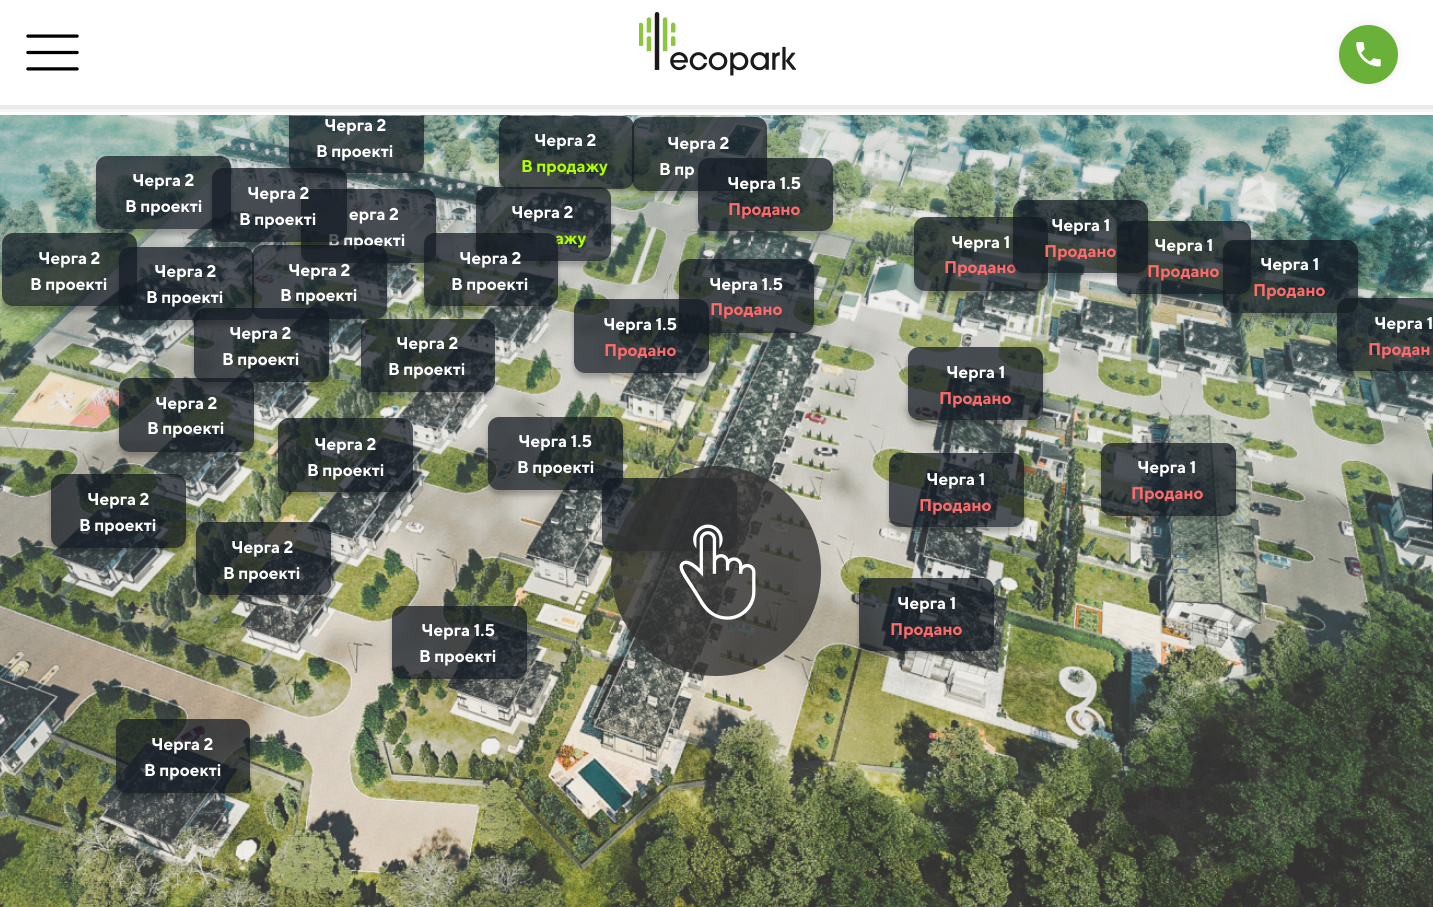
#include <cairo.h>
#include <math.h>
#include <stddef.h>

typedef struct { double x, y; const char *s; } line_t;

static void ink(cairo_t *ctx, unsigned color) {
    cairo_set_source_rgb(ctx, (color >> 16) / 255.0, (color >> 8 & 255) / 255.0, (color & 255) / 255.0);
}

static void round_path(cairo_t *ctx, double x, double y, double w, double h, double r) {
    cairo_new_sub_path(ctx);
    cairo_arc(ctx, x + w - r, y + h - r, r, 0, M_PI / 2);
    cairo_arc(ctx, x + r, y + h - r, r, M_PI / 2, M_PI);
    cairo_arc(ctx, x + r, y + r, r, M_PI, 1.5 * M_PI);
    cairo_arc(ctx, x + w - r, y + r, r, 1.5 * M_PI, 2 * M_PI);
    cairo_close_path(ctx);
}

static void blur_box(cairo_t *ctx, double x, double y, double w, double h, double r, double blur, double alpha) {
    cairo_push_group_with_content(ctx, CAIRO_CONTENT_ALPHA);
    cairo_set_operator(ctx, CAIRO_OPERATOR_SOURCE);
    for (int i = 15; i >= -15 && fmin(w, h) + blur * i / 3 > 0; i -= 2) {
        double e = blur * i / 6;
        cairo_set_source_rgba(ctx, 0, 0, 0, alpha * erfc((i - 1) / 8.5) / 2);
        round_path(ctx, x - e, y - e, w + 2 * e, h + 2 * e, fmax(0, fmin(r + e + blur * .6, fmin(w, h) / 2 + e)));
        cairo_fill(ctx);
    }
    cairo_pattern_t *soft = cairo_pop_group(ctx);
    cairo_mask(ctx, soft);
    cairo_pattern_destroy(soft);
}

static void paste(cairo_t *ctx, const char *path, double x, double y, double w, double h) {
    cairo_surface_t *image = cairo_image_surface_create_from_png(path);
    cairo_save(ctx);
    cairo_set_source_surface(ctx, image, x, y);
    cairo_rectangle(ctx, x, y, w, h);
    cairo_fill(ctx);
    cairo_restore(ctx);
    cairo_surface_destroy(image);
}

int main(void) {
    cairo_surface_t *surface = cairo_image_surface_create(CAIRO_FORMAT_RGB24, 1433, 907);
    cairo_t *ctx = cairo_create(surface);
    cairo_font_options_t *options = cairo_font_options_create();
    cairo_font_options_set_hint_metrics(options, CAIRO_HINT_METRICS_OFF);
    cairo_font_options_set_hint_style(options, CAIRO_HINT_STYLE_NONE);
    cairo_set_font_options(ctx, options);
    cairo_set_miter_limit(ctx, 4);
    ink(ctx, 0xFFFFFF);
    cairo_paint(ctx);
    ink(ctx, 0x323232);
    blur_box(ctx, 1339, 25, 59, 59, 29.5, 4.5, 0.1);
    ink(ctx, 0x6AB139);
    cairo_arc(ctx, 1368.5, 54.5, 29.5, 0, 2 * M_PI);
    cairo_fill(ctx);
    paste(ctx, "media/1.png", 1356, 42, 25, 25);
    paste(ctx, "media/4.png", 0, 115, 1433, 792);
    cairo_save(ctx);
    cairo_set_fill_rule(ctx, CAIRO_FILL_RULE_EVEN_ODD);
    cairo_new_path(ctx);
    cairo_move_to(ctx, 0, 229);
    cairo_line_to(ctx, 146, 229);
    cairo_line_to(ctx, 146, 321);
    cairo_line_to(ctx, 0, 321);
    cairo_close_path(ctx);
    cairo_move_to(ctx, 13, 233);
    cairo_line_to(ctx, 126, 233);
    cairo_curve_to(ctx, 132, 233, 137, 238, 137, 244);
    cairo_line_to(ctx, 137, 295);
    cairo_curve_to(ctx, 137, 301, 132, 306, 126, 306);
    cairo_line_to(ctx, 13, 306);
    cairo_curve_to(ctx, 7, 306, 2, 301, 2, 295);
    cairo_line_to(ctx, 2, 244);
    cairo_curve_to(ctx, 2, 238, 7, 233, 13, 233);
    cairo_close_path(ctx);
    cairo_clip(ctx);
    ink(ctx, 0x000000);
    blur_box(ctx, 2, 238, 135, 74, 11, 2.5, 0.25);
    cairo_restore(ctx);
    cairo_set_source_rgba(ctx, 0.075, 0.098, 0.141, 0.72);
    round_path(ctx, 2, 233, 135, 73, 11);
    cairo_fill(ctx);
    cairo_save(ctx);
    cairo_set_fill_rule(ctx, CAIRO_FILL_RULE_EVEN_ODD);
    cairo_new_path(ctx);
    cairo_move_to(ctx, 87, 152);
    cairo_line_to(ctx, 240, 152);
    cairo_line_to(ctx, 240, 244);
    cairo_line_to(ctx, 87, 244);
    cairo_close_path(ctx);
    cairo_move_to(ctx, 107, 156);
    cairo_line_to(ctx, 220, 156);
    cairo_curve_to(ctx, 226, 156, 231, 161, 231, 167);
    cairo_line_to(ctx, 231, 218);
    cairo_curve_to(ctx, 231, 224, 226, 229, 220, 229);
    cairo_line_to(ctx, 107, 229);
    cairo_curve_to(ctx, 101, 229, 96, 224, 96, 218);
    cairo_line_to(ctx, 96, 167);
    cairo_curve_to(ctx, 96, 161, 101, 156, 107, 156);
    cairo_close_path(ctx);
    cairo_clip(ctx);
    ink(ctx, 0x000000);
    blur_box(ctx, 96, 161, 135, 74, 11, 2.5, 0.25);
    cairo_restore(ctx);
    round_path(ctx, 96, 156, 135, 73, 11);
    cairo_fill(ctx);
    cairo_save(ctx);
    cairo_set_fill_rule(ctx, CAIRO_FILL_RULE_EVEN_ODD);
    cairo_new_path(ctx);
    cairo_move_to(ctx, 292, 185);
    cairo_line_to(ctx, 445, 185);
    cairo_line_to(ctx, 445, 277);
    cairo_line_to(ctx, 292, 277);
    cairo_close_path(ctx);
    cairo_move_to(ctx, 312, 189);
    cairo_line_to(ctx, 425, 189);
    cairo_curve_to(ctx, 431, 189, 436, 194, 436, 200);
    cairo_line_to(ctx, 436, 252);
    cairo_curve_to(ctx, 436, 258, 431, 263, 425, 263);
    cairo_line_to(ctx, 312, 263);
    cairo_curve_to(ctx, 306, 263, 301, 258, 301, 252);
    cairo_line_to(ctx, 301, 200);
    cairo_curve_to(ctx, 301, 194, 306, 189, 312, 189);
    cairo_close_path(ctx);
    cairo_clip(ctx);
    ink(ctx, 0x000000);
    blur_box(ctx, 301, 194, 135, 74, 11, 2.5, 0.25);
    cairo_restore(ctx);
    round_path(ctx, 301, 189, 135, 74, 11);
    cairo_fill(ctx);
    cairo_save(ctx);
    cairo_set_fill_rule(ctx, CAIRO_FILL_RULE_EVEN_ODD);
    cairo_new_path(ctx);
    cairo_move_to(ctx, 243, 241);
    cairo_line_to(ctx, 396, 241);
    cairo_line_to(ctx, 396, 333);
    cairo_line_to(ctx, 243, 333);
    cairo_close_path(ctx);
    cairo_move_to(ctx, 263, 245);
    cairo_line_to(ctx, 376, 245);
    cairo_curve_to(ctx, 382, 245, 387, 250, 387, 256);
    cairo_line_to(ctx, 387, 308);
    cairo_curve_to(ctx, 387, 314, 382, 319, 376, 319);
    cairo_line_to(ctx, 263, 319);
    cairo_curve_to(ctx, 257, 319, 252, 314, 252, 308);
    cairo_line_to(ctx, 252, 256);
    cairo_curve_to(ctx, 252, 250, 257, 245, 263, 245);
    cairo_close_path(ctx);
    cairo_clip(ctx);
    ink(ctx, 0x000000);
    blur_box(ctx, 252, 250, 135, 74, 11, 2.5, 0.25);
    cairo_restore(ctx);
    cairo_select_font_face(ctx, "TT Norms", CAIRO_FONT_SLANT_NORMAL, CAIRO_FONT_WEIGHT_BOLD);
    cairo_set_font_size(ctx, 17);
    ink(ctx, 0xFFFFFF);
    cairo_move_to(ctx, 328, 246);
    cairo_show_text(ctx, "В проекті");
    cairo_set_source_rgba(ctx, 0.075, 0.098, 0.141, 0.72);
    round_path(ctx, 252, 245, 135, 74, 11);
    cairo_fill(ctx);
    cairo_save(ctx);
    cairo_set_fill_rule(ctx, CAIRO_FILL_RULE_EVEN_ODD);
    cairo_new_path(ctx);
    cairo_move_to(ctx, 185, 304);
    cairo_line_to(ctx, 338, 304);
    cairo_line_to(ctx, 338, 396);
    cairo_line_to(ctx, 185, 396);
    cairo_close_path(ctx);
    cairo_move_to(ctx, 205, 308);
    cairo_line_to(ctx, 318, 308);
    cairo_curve_to(ctx, 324, 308, 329, 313, 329, 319);
    cairo_line_to(ctx, 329, 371);
    cairo_curve_to(ctx, 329, 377, 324, 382, 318, 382);
    cairo_line_to(ctx, 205, 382);
    cairo_curve_to(ctx, 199, 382, 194, 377, 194, 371);
    cairo_line_to(ctx, 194, 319);
    cairo_curve_to(ctx, 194, 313, 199, 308, 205, 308);
    cairo_close_path(ctx);
    cairo_clip(ctx);
    ink(ctx, 0x000000);
    blur_box(ctx, 194, 313, 135, 74, 11, 2.5, 0.25);
    cairo_restore(ctx);
    round_path(ctx, 194, 308, 135, 74, 11);
    cairo_fill(ctx);
    cairo_save(ctx);
    cairo_set_fill_rule(ctx, CAIRO_FILL_RULE_EVEN_ODD);
    cairo_new_path(ctx);
    cairo_move_to(ctx, 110, 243);
    cairo_line_to(ctx, 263, 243);
    cairo_line_to(ctx, 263, 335);
    cairo_line_to(ctx, 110, 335);
    cairo_close_path(ctx);
    cairo_move_to(ctx, 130, 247);
    cairo_line_to(ctx, 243, 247);
    cairo_curve_to(ctx, 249, 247, 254, 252, 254, 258);
    cairo_line_to(ctx, 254, 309);
    cairo_curve_to(ctx, 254, 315, 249, 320, 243, 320);
    cairo_line_to(ctx, 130, 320);
    cairo_curve_to(ctx, 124, 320, 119, 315, 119, 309);
    cairo_line_to(ctx, 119, 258);
    cairo_curve_to(ctx, 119, 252, 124, 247, 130, 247);
    cairo_close_path(ctx);
    cairo_clip(ctx);
    ink(ctx, 0x000000);
    blur_box(ctx, 119, 252, 135, 74, 11, 2.5, 0.25);
    cairo_restore(ctx);
    round_path(ctx, 119, 247, 135, 73, 11);
    cairo_fill(ctx);
    cairo_save(ctx);
    cairo_set_fill_rule(ctx, CAIRO_FILL_RULE_EVEN_ODD);
    cairo_new_path(ctx);
    cairo_move_to(ctx, 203, 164);
    cairo_line_to(ctx, 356, 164);
    cairo_line_to(ctx, 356, 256);
    cairo_line_to(ctx, 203, 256);
    cairo_close_path(ctx);
    cairo_move_to(ctx, 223, 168);
    cairo_line_to(ctx, 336, 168);
    cairo_curve_to(ctx, 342, 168, 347, 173, 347, 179);
    cairo_line_to(ctx, 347, 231);
    cairo_curve_to(ctx, 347, 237, 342, 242, 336, 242);
    cairo_line_to(ctx, 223, 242);
    cairo_curve_to(ctx, 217, 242, 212, 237, 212, 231);
    cairo_line_to(ctx, 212, 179);
    cairo_curve_to(ctx, 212, 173, 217, 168, 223, 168);
    cairo_close_path(ctx);
    cairo_clip(ctx);
    ink(ctx, 0x000000);
    blur_box(ctx, 212, 173, 135, 74, 11, 2.5, 0.25);
    cairo_restore(ctx);
    round_path(ctx, 212, 168, 135, 74, 11);
    cairo_fill(ctx);
    cairo_save(ctx);
    cairo_rectangle(ctx, 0, 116, 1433, 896);
    cairo_clip(ctx);
    cairo_set_fill_rule(ctx, CAIRO_FILL_RULE_EVEN_ODD);
    cairo_new_path(ctx);
    cairo_move_to(ctx, 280, 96);
    cairo_line_to(ctx, 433, 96);
    cairo_line_to(ctx, 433, 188);
    cairo_line_to(ctx, 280, 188);
    cairo_close_path(ctx);
    cairo_move_to(ctx, 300, 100);
    cairo_line_to(ctx, 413, 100);
    cairo_curve_to(ctx, 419, 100, 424, 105, 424, 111);
    cairo_line_to(ctx, 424, 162);
    cairo_curve_to(ctx, 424, 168, 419, 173, 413, 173);
    cairo_line_to(ctx, 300, 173);
    cairo_curve_to(ctx, 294, 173, 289, 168, 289, 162);
    cairo_line_to(ctx, 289, 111);
    cairo_curve_to(ctx, 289, 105, 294, 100, 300, 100);
    cairo_close_path(ctx);
    cairo_clip(ctx);
    ink(ctx, 0x000000);
    blur_box(ctx, 289, 105, 135, 74, 11, 2.5, 0.25);
    cairo_restore(ctx);
    ink(ctx, 0xF5F5F5);
    cairo_new_path(ctx);
    cairo_move_to(ctx, -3, 0);
    cairo_line_to(ctx, -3, 112);
    cairo_line_to(ctx, 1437, 112);
    cairo_line_to(ctx, 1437, 0);
    cairo_line_to(ctx, 1433, 0);
    cairo_line_to(ctx, 1433, 105);
    cairo_line_to(ctx, 0, 105);
    cairo_line_to(ctx, 0, 0);
    cairo_close_path(ctx);
    cairo_fill(ctx);
    ink(ctx, 0xEAEAEA);
    cairo_new_path(ctx);
    cairo_move_to(ctx, -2, 0);
    cairo_line_to(ctx, -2, 109);
    cairo_line_to(ctx, 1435, 109);
    cairo_line_to(ctx, 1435, 0);
    cairo_line_to(ctx, 1433, 0);
    cairo_line_to(ctx, 1433, 105);
    cairo_line_to(ctx, 0, 105);
    cairo_line_to(ctx, 0, 0);
    cairo_close_path(ctx);
    cairo_fill(ctx);
    paste(ctx, "media/2.png", 26, 34, 53, 37);
    paste(ctx, "media/3.png", 639, 12, 157, 64);
    cairo_set_source_rgba(ctx, 0.075, 0.098, 0.141, 0.72);
    cairo_new_path(ctx);
    cairo_move_to(ctx, 289, 116);
    cairo_line_to(ctx, 424, 116);
    cairo_line_to(ctx, 424, 162);
    cairo_curve_to(ctx, 424, 168, 419, 173, 413, 173);
    cairo_line_to(ctx, 300, 173);
    cairo_curve_to(ctx, 294, 173, 289, 168, 289, 162);
    cairo_close_path(ctx);
    cairo_fill(ctx);
    ink(ctx, 0xFFFFFF);
    cairo_move_to(ctx, 324, 131);
    cairo_show_text(ctx, "Черга 2");
    cairo_move_to(ctx, 316, 157);
    cairo_show_text(ctx, "В проекті");
    cairo_save(ctx);
    cairo_set_fill_rule(ctx, CAIRO_FILL_RULE_EVEN_ODD);
    cairo_new_path(ctx);
    cairo_move_to(ctx, 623, 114);
    cairo_line_to(ctx, 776, 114);
    cairo_line_to(ctx, 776, 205);
    cairo_line_to(ctx, 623, 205);
    cairo_close_path(ctx);
    cairo_move_to(ctx, 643, 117);
    cairo_line_to(ctx, 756, 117);
    cairo_curve_to(ctx, 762, 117, 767, 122, 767, 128);
    cairo_line_to(ctx, 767, 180);
    cairo_curve_to(ctx, 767, 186, 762, 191, 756, 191);
    cairo_line_to(ctx, 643, 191);
    cairo_curve_to(ctx, 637, 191, 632, 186, 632, 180);
    cairo_line_to(ctx, 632, 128);
    cairo_curve_to(ctx, 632, 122, 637, 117, 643, 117);
    cairo_close_path(ctx);
    cairo_clip(ctx);
    ink(ctx, 0x000000);
    blur_box(ctx, 632, 123, 135, 73, 11, 2.5, 0.25);
    cairo_restore(ctx);
    cairo_set_source_rgba(ctx, 0.075, 0.098, 0.141, 0.72);
    round_path(ctx, 632, 117, 135, 74, 11);
    cairo_fill(ctx);
    cairo_save(ctx);
    cairo_set_fill_rule(ctx, CAIRO_FILL_RULE_EVEN_ODD);
    cairo_new_path(ctx);
    cairo_move_to(ctx, 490, 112);
    cairo_line_to(ctx, 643, 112);
    cairo_line_to(ctx, 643, 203);
    cairo_line_to(ctx, 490, 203);
    cairo_close_path(ctx);
    cairo_move_to(ctx, 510, 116);
    cairo_line_to(ctx, 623, 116);
    cairo_curve_to(ctx, 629, 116, 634, 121, 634, 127);
    cairo_line_to(ctx, 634, 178);
    cairo_curve_to(ctx, 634, 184, 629, 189, 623, 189);
    cairo_line_to(ctx, 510, 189);
    cairo_curve_to(ctx, 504, 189, 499, 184, 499, 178);
    cairo_line_to(ctx, 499, 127);
    cairo_curve_to(ctx, 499, 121, 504, 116, 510, 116);
    cairo_close_path(ctx);
    cairo_clip(ctx);
    ink(ctx, 0x000000);
    blur_box(ctx, 499, 121, 135, 73, 11, 2.5, 0.25);
    cairo_restore(ctx);
    round_path(ctx, 499, 116, 135, 73, 11);
    cairo_fill(ctx);
    ink(ctx, 0xFFFFFF);
    cairo_move_to(ctx, 534, 146);
    cairo_show_text(ctx, "Черга 2");
    ink(ctx, 0xB0FF00);
    cairo_move_to(ctx, 521, 172);
    cairo_show_text(ctx, "В продажу");
    ink(ctx, 0xFFFFFF);
    {
        static const line_t items[] = {
            {667, 149, "Черга 2"},
            {659, 175, "В пр"},
            {38, 264, "Черга 2"},
            {30, 290, "В проекті"},
            {132, 186, "Черга 2"},
            {125, 212, "В проекті"},
            {247, 199, "Черга 2"},
            {239, 225, "В проекті"},
            {288, 276, "Черга 2"},
            {280, 301, "В проекті"},
            {349, 220, "ерга 2"},
        };
        for (size_t i = 0; i < sizeof items / sizeof *items; i++) {
            cairo_move_to(ctx, items[i].x, items[i].y);
            cairo_show_text(ctx, items[i].s);
        }
    }
    cairo_save(ctx);
    cairo_set_fill_rule(ctx, CAIRO_FILL_RULE_EVEN_ODD);
    cairo_new_path(ctx);
    cairo_move_to(ctx, 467, 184);
    cairo_line_to(ctx, 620, 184);
    cairo_line_to(ctx, 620, 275);
    cairo_line_to(ctx, 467, 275);
    cairo_close_path(ctx);
    cairo_move_to(ctx, 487, 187);
    cairo_line_to(ctx, 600, 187);
    cairo_curve_to(ctx, 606, 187, 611, 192, 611, 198);
    cairo_line_to(ctx, 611, 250);
    cairo_curve_to(ctx, 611, 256, 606, 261, 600, 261);
    cairo_line_to(ctx, 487, 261);
    cairo_curve_to(ctx, 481, 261, 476, 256, 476, 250);
    cairo_line_to(ctx, 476, 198);
    cairo_curve_to(ctx, 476, 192, 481, 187, 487, 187);
    cairo_close_path(ctx);
    cairo_clip(ctx);
    ink(ctx, 0x000000);
    blur_box(ctx, 476, 193, 135, 73, 11, 2.5, 0.25);
    cairo_restore(ctx);
    cairo_set_source_rgba(ctx, 0.075, 0.098, 0.141, 0.72);
    round_path(ctx, 476, 187, 135, 74, 11);
    cairo_fill(ctx);
    cairo_save(ctx);
    cairo_set_fill_rule(ctx, CAIRO_FILL_RULE_EVEN_ODD);
    cairo_new_path(ctx);
    cairo_move_to(ctx, 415, 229);
    cairo_line_to(ctx, 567, 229);
    cairo_line_to(ctx, 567, 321);
    cairo_line_to(ctx, 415, 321);
    cairo_close_path(ctx);
    cairo_move_to(ctx, 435, 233);
    cairo_line_to(ctx, 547, 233);
    cairo_curve_to(ctx, 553, 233, 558, 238, 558, 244);
    cairo_line_to(ctx, 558, 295);
    cairo_curve_to(ctx, 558, 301, 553, 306, 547, 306);
    cairo_line_to(ctx, 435, 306);
    cairo_curve_to(ctx, 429, 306, 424, 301, 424, 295);
    cairo_line_to(ctx, 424, 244);
    cairo_curve_to(ctx, 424, 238, 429, 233, 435, 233);
    cairo_close_path(ctx);
    cairo_clip(ctx);
    ink(ctx, 0x000000);
    blur_box(ctx, 424, 238, 134, 74, 11, 2.5, 0.25);
    cairo_restore(ctx);
    ink(ctx, 0xB0FF00);
    cairo_move_to(ctx, 555, 244);
    cairo_show_text(ctx, "ажу");
    cairo_set_source_rgba(ctx, 0.075, 0.098, 0.141, 0.72);
    round_path(ctx, 424, 233, 134, 73, 11);
    cairo_fill(ctx);
    ink(ctx, 0xFFFFFF);
    {
        static const line_t items[] = {
            {459, 264, "Черга 2"},
            {451, 290, "В проекті"},
            {511, 218, "Черга 2"},
        };
        for (size_t i = 0; i < sizeof items / sizeof *items; i++) {
            cairo_move_to(ctx, items[i].x, items[i].y);
            cairo_show_text(ctx, items[i].s);
        }
    }
    cairo_save(ctx);
    cairo_set_fill_rule(ctx, CAIRO_FILL_RULE_EVEN_ODD);
    cairo_new_path(ctx);
    cairo_move_to(ctx, 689, 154);
    cairo_line_to(ctx, 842, 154);
    cairo_line_to(ctx, 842, 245);
    cairo_line_to(ctx, 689, 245);
    cairo_close_path(ctx);
    cairo_move_to(ctx, 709, 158);
    cairo_line_to(ctx, 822, 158);
    cairo_curve_to(ctx, 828, 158, 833, 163, 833, 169);
    cairo_line_to(ctx, 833, 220);
    cairo_curve_to(ctx, 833, 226, 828, 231, 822, 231);
    cairo_line_to(ctx, 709, 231);
    cairo_curve_to(ctx, 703, 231, 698, 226, 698, 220);
    cairo_line_to(ctx, 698, 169);
    cairo_curve_to(ctx, 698, 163, 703, 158, 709, 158);
    cairo_close_path(ctx);
    cairo_clip(ctx);
    ink(ctx, 0x000000);
    blur_box(ctx, 698, 163, 135, 73, 11, 2.5, 0.25);
    cairo_restore(ctx);
    cairo_set_source_rgba(ctx, 0.075, 0.098, 0.141, 0.72);
    round_path(ctx, 698, 158, 135, 73, 11);
    cairo_fill(ctx);
    ink(ctx, 0xFFFFFF);
    cairo_move_to(ctx, 727, 189);
    cairo_show_text(ctx, "Черга 1.5");
    ink(ctx, 0xFF6B6B);
    cairo_move_to(ctx, 728, 215);
    cairo_show_text(ctx, "Продано");
    cairo_save(ctx);
    cairo_set_fill_rule(ctx, CAIRO_FILL_RULE_EVEN_ODD);
    cairo_new_path(ctx);
    cairo_move_to(ctx, 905, 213);
    cairo_line_to(ctx, 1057, 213);
    cairo_line_to(ctx, 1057, 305);
    cairo_line_to(ctx, 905, 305);
    cairo_close_path(ctx);
    cairo_move_to(ctx, 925, 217);
    cairo_line_to(ctx, 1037, 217);
    cairo_curve_to(ctx, 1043, 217, 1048, 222, 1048, 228);
    cairo_line_to(ctx, 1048, 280);
    cairo_curve_to(ctx, 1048, 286, 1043, 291, 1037, 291);
    cairo_line_to(ctx, 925, 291);
    cairo_curve_to(ctx, 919, 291, 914, 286, 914, 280);
    cairo_line_to(ctx, 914, 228);
    cairo_curve_to(ctx, 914, 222, 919, 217, 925, 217);
    cairo_close_path(ctx);
    cairo_clip(ctx);
    ink(ctx, 0x000000);
    blur_box(ctx, 914, 222, 134, 74, 11, 2.5, 0.25);
    cairo_restore(ctx);
    cairo_set_source_rgba(ctx, 0.075, 0.098, 0.141, 0.72);
    round_path(ctx, 914, 217, 134, 74, 11);
    cairo_fill(ctx);
    ink(ctx, 0xFFFFFF);
    cairo_move_to(ctx, 951, 248);
    cairo_show_text(ctx, "Черга 1");
    ink(ctx, 0xFF6B6B);
    cairo_move_to(ctx, 944, 273);
    cairo_show_text(ctx, "Продано");
    cairo_save(ctx);
    cairo_set_fill_rule(ctx, CAIRO_FILL_RULE_EVEN_ODD);
    cairo_new_path(ctx);
    cairo_move_to(ctx, 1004, 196);
    cairo_line_to(ctx, 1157, 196);
    cairo_line_to(ctx, 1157, 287);
    cairo_line_to(ctx, 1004, 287);
    cairo_close_path(ctx);
    cairo_move_to(ctx, 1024, 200);
    cairo_line_to(ctx, 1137, 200);
    cairo_curve_to(ctx, 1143, 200, 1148, 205, 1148, 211);
    cairo_line_to(ctx, 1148, 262);
    cairo_curve_to(ctx, 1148, 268, 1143, 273, 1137, 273);
    cairo_line_to(ctx, 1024, 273);
    cairo_curve_to(ctx, 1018, 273, 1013, 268, 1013, 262);
    cairo_line_to(ctx, 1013, 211);
    cairo_curve_to(ctx, 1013, 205, 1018, 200, 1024, 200);
    cairo_close_path(ctx);
    cairo_clip(ctx);
    ink(ctx, 0x000000);
    blur_box(ctx, 1013, 205, 135, 73, 11, 2.5, 0.25);
    cairo_restore(ctx);
    cairo_set_source_rgba(ctx, 0.075, 0.098, 0.141, 0.72);
    round_path(ctx, 1013, 200, 135, 73, 11);
    cairo_fill(ctx);
    ink(ctx, 0xFFFFFF);
    cairo_move_to(ctx, 1051, 231);
    cairo_show_text(ctx, "Черга 1");
    ink(ctx, 0xFF6B6B);
    cairo_move_to(ctx, 1044, 257);
    cairo_show_text(ctx, "Продано");
    cairo_save(ctx);
    cairo_set_fill_rule(ctx, CAIRO_FILL_RULE_EVEN_ODD);
    cairo_new_path(ctx);
    cairo_move_to(ctx, 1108, 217);
    cairo_line_to(ctx, 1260, 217);
    cairo_line_to(ctx, 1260, 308);
    cairo_line_to(ctx, 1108, 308);
    cairo_close_path(ctx);
    cairo_move_to(ctx, 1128, 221);
    cairo_line_to(ctx, 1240, 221);
    cairo_curve_to(ctx, 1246, 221, 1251, 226, 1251, 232);
    cairo_line_to(ctx, 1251, 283);
    cairo_curve_to(ctx, 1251, 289, 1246, 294, 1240, 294);
    cairo_line_to(ctx, 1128, 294);
    cairo_curve_to(ctx, 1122, 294, 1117, 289, 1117, 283);
    cairo_line_to(ctx, 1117, 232);
    cairo_curve_to(ctx, 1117, 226, 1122, 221, 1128, 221);
    cairo_close_path(ctx);
    cairo_clip(ctx);
    ink(ctx, 0x000000);
    blur_box(ctx, 1117, 226, 134, 73, 11, 2.5, 0.25);
    cairo_restore(ctx);
    cairo_set_source_rgba(ctx, 0.075, 0.098, 0.141, 0.72);
    round_path(ctx, 1117, 221, 134, 73, 11);
    cairo_fill(ctx);
    ink(ctx, 0xFFFFFF);
    cairo_move_to(ctx, 1154, 251);
    cairo_show_text(ctx, "Черга 1");
    ink(ctx, 0xFF6B6B);
    cairo_move_to(ctx, 1147, 277);
    cairo_show_text(ctx, "Продано");
    cairo_save(ctx);
    cairo_set_fill_rule(ctx, CAIRO_FILL_RULE_EVEN_ODD);
    cairo_new_path(ctx);
    cairo_move_to(ctx, 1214, 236);
    cairo_line_to(ctx, 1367, 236);
    cairo_line_to(ctx, 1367, 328);
    cairo_line_to(ctx, 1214, 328);
    cairo_close_path(ctx);
    cairo_move_to(ctx, 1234, 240);
    cairo_line_to(ctx, 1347, 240);
    cairo_curve_to(ctx, 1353, 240, 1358, 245, 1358, 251);
    cairo_line_to(ctx, 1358, 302);
    cairo_curve_to(ctx, 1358, 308, 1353, 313, 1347, 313);
    cairo_line_to(ctx, 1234, 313);
    cairo_curve_to(ctx, 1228, 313, 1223, 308, 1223, 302);
    cairo_line_to(ctx, 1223, 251);
    cairo_curve_to(ctx, 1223, 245, 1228, 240, 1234, 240);
    cairo_close_path(ctx);
    cairo_clip(ctx);
    ink(ctx, 0x000000);
    blur_box(ctx, 1223, 245, 135, 74, 11, 2.5, 0.25);
    cairo_restore(ctx);
    cairo_set_source_rgba(ctx, 0.075, 0.098, 0.141, 0.72);
    round_path(ctx, 1223, 240, 135, 73, 11);
    cairo_fill(ctx);
    ink(ctx, 0xFFFFFF);
    cairo_move_to(ctx, 1260, 270);
    cairo_show_text(ctx, "Черга 1");
    ink(ctx, 0xFF6B6B);
    cairo_move_to(ctx, 1253, 296);
    cairo_show_text(ctx, "Продано");
    ink(ctx, 0xFFFFFF);
    cairo_move_to(ctx, 154, 277);
    cairo_show_text(ctx, "Черга 2");
    cairo_move_to(ctx, 146, 303);
    cairo_show_text(ctx, "В проекті");
    cairo_save(ctx);
    cairo_set_fill_rule(ctx, CAIRO_FILL_RULE_EVEN_ODD);
    cairo_new_path(ctx);
    cairo_move_to(ctx, 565, 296);
    cairo_line_to(ctx, 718, 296);
    cairo_line_to(ctx, 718, 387);
    cairo_line_to(ctx, 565, 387);
    cairo_close_path(ctx);
    cairo_move_to(ctx, 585, 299);
    cairo_line_to(ctx, 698, 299);
    cairo_curve_to(ctx, 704, 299, 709, 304, 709, 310);
    cairo_line_to(ctx, 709, 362);
    cairo_curve_to(ctx, 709, 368, 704, 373, 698, 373);
    cairo_line_to(ctx, 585, 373);
    cairo_curve_to(ctx, 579, 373, 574, 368, 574, 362);
    cairo_line_to(ctx, 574, 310);
    cairo_curve_to(ctx, 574, 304, 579, 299, 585, 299);
    cairo_close_path(ctx);
    cairo_clip(ctx);
    ink(ctx, 0x000000);
    blur_box(ctx, 574, 305, 135, 73, 11, 2.5, 0.25);
    cairo_restore(ctx);
    cairo_set_source_rgba(ctx, 0.075, 0.098, 0.141, 0.72);
    round_path(ctx, 574, 299, 135, 74, 11);
    cairo_fill(ctx);
    cairo_save(ctx);
    cairo_set_fill_rule(ctx, CAIRO_FILL_RULE_EVEN_ODD);
    cairo_new_path(ctx);
    cairo_move_to(ctx, 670, 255);
    cairo_line_to(ctx, 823, 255);
    cairo_line_to(ctx, 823, 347);
    cairo_line_to(ctx, 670, 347);
    cairo_close_path(ctx);
    cairo_move_to(ctx, 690, 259);
    cairo_line_to(ctx, 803, 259);
    cairo_curve_to(ctx, 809, 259, 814, 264, 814, 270);
    cairo_line_to(ctx, 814, 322);
    cairo_curve_to(ctx, 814, 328, 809, 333, 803, 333);
    cairo_line_to(ctx, 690, 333);
    cairo_curve_to(ctx, 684, 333, 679, 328, 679, 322);
    cairo_line_to(ctx, 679, 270);
    cairo_curve_to(ctx, 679, 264, 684, 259, 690, 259);
    cairo_close_path(ctx);
    cairo_clip(ctx);
    ink(ctx, 0x000000);
    blur_box(ctx, 679, 264, 135, 74, 11, 2.5, 0.25);
    cairo_restore(ctx);
    round_path(ctx, 679, 259, 135, 74, 11);
    cairo_fill(ctx);
    ink(ctx, 0xFFFFFF);
    cairo_move_to(ctx, 709, 290);
    cairo_show_text(ctx, "Черга 1.5");
    ink(ctx, 0xFF6B6B);
    cairo_move_to(ctx, 710, 315);
    cairo_show_text(ctx, "Продано");
    ink(ctx, 0xFFFFFF);
    cairo_move_to(ctx, 229, 339);
    cairo_show_text(ctx, "Черга 2");
    cairo_move_to(ctx, 222, 365);
    cairo_show_text(ctx, "В проекті");
    cairo_save(ctx);
    cairo_set_fill_rule(ctx, CAIRO_FILL_RULE_EVEN_ODD);
    cairo_new_path(ctx);
    cairo_move_to(ctx, 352, 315);
    cairo_line_to(ctx, 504, 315);
    cairo_line_to(ctx, 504, 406);
    cairo_line_to(ctx, 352, 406);
    cairo_close_path(ctx);
    cairo_move_to(ctx, 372, 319);
    cairo_line_to(ctx, 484, 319);
    cairo_curve_to(ctx, 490, 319, 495, 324, 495, 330);
    cairo_line_to(ctx, 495, 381);
    cairo_curve_to(ctx, 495, 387, 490, 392, 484, 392);
    cairo_line_to(ctx, 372, 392);
    cairo_curve_to(ctx, 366, 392, 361, 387, 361, 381);
    cairo_line_to(ctx, 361, 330);
    cairo_curve_to(ctx, 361, 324, 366, 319, 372, 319);
    cairo_close_path(ctx);
    cairo_clip(ctx);
    ink(ctx, 0x000000);
    blur_box(ctx, 361, 324, 134, 73, 11, 2.5, 0.25);
    cairo_restore(ctx);
    cairo_set_source_rgba(ctx, 0.075, 0.098, 0.141, 0.72);
    round_path(ctx, 361, 319, 134, 73, 11);
    cairo_fill(ctx);
    ink(ctx, 0xFFFFFF);
    {
        static const line_t items[] = {
            {396, 349, "Черга 2"},
            {388, 375, "В проекті"},
            {603, 330, "Черга 1.5"},
        };
        for (size_t i = 0; i < sizeof items / sizeof *items; i++) {
            cairo_move_to(ctx, items[i].x, items[i].y);
            cairo_show_text(ctx, items[i].s);
        }
    }
    ink(ctx, 0xFF6B6B);
    cairo_move_to(ctx, 604, 356);
    cairo_show_text(ctx, "Продано");
    cairo_save(ctx);
    cairo_set_fill_rule(ctx, CAIRO_FILL_RULE_EVEN_ODD);
    cairo_new_path(ctx);
    cairo_move_to(ctx, 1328, 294);
    cairo_line_to(ctx, 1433, 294);
    cairo_line_to(ctx, 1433, 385);
    cairo_line_to(ctx, 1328, 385);
    cairo_close_path(ctx);
    cairo_move_to(ctx, 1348, 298);
    cairo_line_to(ctx, 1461, 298);
    cairo_curve_to(ctx, 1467, 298, 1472, 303, 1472, 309);
    cairo_line_to(ctx, 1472, 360);
    cairo_curve_to(ctx, 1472, 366, 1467, 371, 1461, 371);
    cairo_line_to(ctx, 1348, 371);
    cairo_curve_to(ctx, 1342, 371, 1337, 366, 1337, 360);
    cairo_line_to(ctx, 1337, 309);
    cairo_curve_to(ctx, 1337, 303, 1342, 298, 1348, 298);
    cairo_close_path(ctx);
    cairo_clip(ctx);
    ink(ctx, 0x000000);
    blur_box(ctx, 1337, 303, 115, 73, 11, 2.5, 0.25);
    cairo_restore(ctx);
    cairo_set_source_rgba(ctx, 0.075, 0.098, 0.141, 0.72);
    cairo_new_path(ctx);
    cairo_move_to(ctx, 1348, 298);
    cairo_line_to(ctx, 1433, 298);
    cairo_line_to(ctx, 1433, 371);
    cairo_line_to(ctx, 1348, 371);
    cairo_curve_to(ctx, 1342, 371, 1337, 366, 1337, 360);
    cairo_line_to(ctx, 1337, 309);
    cairo_curve_to(ctx, 1337, 303, 1342, 298, 1348, 298);
    cairo_close_path(ctx);
    cairo_fill(ctx);
    ink(ctx, 0xFFFFFF);
    cairo_move_to(ctx, 1374, 329);
    cairo_show_text(ctx, "Черга 1");
    ink(ctx, 0xFF6B6B);
    cairo_move_to(ctx, 1368, 355);
    cairo_show_text(ctx, "Продан");
    cairo_save(ctx);
    cairo_set_fill_rule(ctx, CAIRO_FILL_RULE_EVEN_ODD);
    cairo_new_path(ctx);
    cairo_move_to(ctx, 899, 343);
    cairo_line_to(ctx, 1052, 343);
    cairo_line_to(ctx, 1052, 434);
    cairo_line_to(ctx, 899, 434);
    cairo_close_path(ctx);
    cairo_move_to(ctx, 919, 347);
    cairo_line_to(ctx, 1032, 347);
    cairo_curve_to(ctx, 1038, 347, 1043, 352, 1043, 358);
    cairo_line_to(ctx, 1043, 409);
    cairo_curve_to(ctx, 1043, 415, 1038, 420, 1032, 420);
    cairo_line_to(ctx, 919, 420);
    cairo_curve_to(ctx, 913, 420, 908, 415, 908, 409);
    cairo_line_to(ctx, 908, 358);
    cairo_curve_to(ctx, 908, 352, 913, 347, 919, 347);
    cairo_close_path(ctx);
    cairo_clip(ctx);
    ink(ctx, 0x000000);
    blur_box(ctx, 908, 352, 135, 73, 11, 2.5, 0.25);
    cairo_restore(ctx);
    cairo_set_source_rgba(ctx, 0.075, 0.098, 0.141, 0.72);
    round_path(ctx, 908, 347, 135, 73, 11);
    cairo_fill(ctx);
    ink(ctx, 0xFFFFFF);
    cairo_move_to(ctx, 946, 378);
    cairo_show_text(ctx, "Черга 1");
    ink(ctx, 0xFF6B6B);
    cairo_move_to(ctx, 939, 404);
    cairo_show_text(ctx, "Продано");
    cairo_save(ctx);
    cairo_set_fill_rule(ctx, CAIRO_FILL_RULE_EVEN_ODD);
    cairo_new_path(ctx);
    cairo_move_to(ctx, 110, 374);
    cairo_line_to(ctx, 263, 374);
    cairo_line_to(ctx, 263, 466);
    cairo_line_to(ctx, 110, 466);
    cairo_close_path(ctx);
    cairo_move_to(ctx, 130, 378);
    cairo_line_to(ctx, 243, 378);
    cairo_curve_to(ctx, 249, 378, 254, 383, 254, 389);
    cairo_line_to(ctx, 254, 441);
    cairo_curve_to(ctx, 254, 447, 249, 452, 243, 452);
    cairo_line_to(ctx, 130, 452);
    cairo_curve_to(ctx, 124, 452, 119, 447, 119, 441);
    cairo_line_to(ctx, 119, 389);
    cairo_curve_to(ctx, 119, 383, 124, 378, 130, 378);
    cairo_close_path(ctx);
    cairo_clip(ctx);
    ink(ctx, 0x000000);
    blur_box(ctx, 119, 383, 135, 74, 11, 2.5, 0.25);
    cairo_restore(ctx);
    cairo_set_source_rgba(ctx, 0.075, 0.098, 0.141, 0.72);
    round_path(ctx, 119, 378, 135, 74, 11);
    cairo_fill(ctx);
    ink(ctx, 0xFFFFFF);
    cairo_move_to(ctx, 155, 409);
    cairo_show_text(ctx, "Черга 2");
    cairo_move_to(ctx, 147, 434);
    cairo_show_text(ctx, "В проекті");
    cairo_save(ctx);
    cairo_set_fill_rule(ctx, CAIRO_FILL_RULE_EVEN_ODD);
    cairo_new_path(ctx);
    cairo_move_to(ctx, 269, 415);
    cairo_line_to(ctx, 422, 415);
    cairo_line_to(ctx, 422, 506);
    cairo_line_to(ctx, 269, 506);
    cairo_close_path(ctx);
    cairo_move_to(ctx, 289, 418);
    cairo_line_to(ctx, 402, 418);
    cairo_curve_to(ctx, 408, 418, 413, 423, 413, 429);
    cairo_line_to(ctx, 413, 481);
    cairo_curve_to(ctx, 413, 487, 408, 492, 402, 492);
    cairo_line_to(ctx, 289, 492);
    cairo_curve_to(ctx, 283, 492, 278, 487, 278, 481);
    cairo_line_to(ctx, 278, 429);
    cairo_curve_to(ctx, 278, 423, 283, 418, 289, 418);
    cairo_close_path(ctx);
    cairo_clip(ctx);
    ink(ctx, 0x000000);
    blur_box(ctx, 278, 424, 135, 73, 11, 2.5, 0.25);
    cairo_restore(ctx);
    cairo_set_source_rgba(ctx, 0.075, 0.098, 0.141, 0.72);
    round_path(ctx, 278, 418, 135, 74, 11);
    cairo_fill(ctx);
    ink(ctx, 0xFFFFFF);
    cairo_move_to(ctx, 314, 450);
    cairo_show_text(ctx, "Черга 2");
    cairo_move_to(ctx, 307, 476);
    cairo_show_text(ctx, "В проекті");
    cairo_save(ctx);
    cairo_set_fill_rule(ctx, CAIRO_FILL_RULE_EVEN_ODD);
    cairo_new_path(ctx);
    cairo_move_to(ctx, 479, 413);
    cairo_line_to(ctx, 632, 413);
    cairo_line_to(ctx, 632, 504);
    cairo_line_to(ctx, 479, 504);
    cairo_close_path(ctx);
    cairo_move_to(ctx, 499, 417);
    cairo_line_to(ctx, 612, 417);
    cairo_curve_to(ctx, 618, 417, 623, 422, 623, 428);
    cairo_line_to(ctx, 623, 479);
    cairo_curve_to(ctx, 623, 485, 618, 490, 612, 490);
    cairo_line_to(ctx, 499, 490);
    cairo_curve_to(ctx, 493, 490, 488, 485, 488, 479);
    cairo_line_to(ctx, 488, 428);
    cairo_curve_to(ctx, 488, 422, 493, 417, 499, 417);
    cairo_close_path(ctx);
    cairo_clip(ctx);
    ink(ctx, 0x000000);
    blur_box(ctx, 488, 422, 135, 73, 11, 2.5, 0.25);
    cairo_restore(ctx);
    cairo_set_source_rgba(ctx, 0.075, 0.098, 0.141, 0.72);
    round_path(ctx, 488, 417, 135, 73, 11);
    cairo_fill(ctx);
    ink(ctx, 0xFFFFFF);
    cairo_move_to(ctx, 518, 447);
    cairo_show_text(ctx, "Черга 1.5");
    cairo_move_to(ctx, 517, 473);
    cairo_show_text(ctx, "В проекті");
    cairo_save(ctx);
    cairo_set_fill_rule(ctx, CAIRO_FILL_RULE_EVEN_ODD);
    cairo_new_path(ctx);
    cairo_move_to(ctx, 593, 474);
    cairo_line_to(ctx, 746, 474);
    cairo_line_to(ctx, 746, 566);
    cairo_line_to(ctx, 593, 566);
    cairo_close_path(ctx);
    cairo_move_to(ctx, 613, 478);
    cairo_line_to(ctx, 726, 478);
    cairo_curve_to(ctx, 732, 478, 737, 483, 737, 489);
    cairo_line_to(ctx, 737, 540);
    cairo_curve_to(ctx, 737, 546, 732, 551, 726, 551);
    cairo_line_to(ctx, 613, 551);
    cairo_curve_to(ctx, 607, 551, 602, 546, 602, 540);
    cairo_line_to(ctx, 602, 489);
    cairo_curve_to(ctx, 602, 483, 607, 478, 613, 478);
    cairo_close_path(ctx);
    cairo_clip(ctx);
    ink(ctx, 0x000000);
    blur_box(ctx, 602, 483, 135, 74, 11, 2.5, 0.25);
    cairo_restore(ctx);
    cairo_set_source_rgba(ctx, 0.075, 0.098, 0.141, 0.72);
    round_path(ctx, 602, 478, 135, 73, 11);
    cairo_fill(ctx);
    cairo_set_source_rgba(ctx, 0.196, 0.196, 0.196, 0.8);
    cairo_arc(ctx, 716, 571, 105, 0, 2 * M_PI);
    cairo_fill(ctx);
    paste(ctx, "media/5.png", 679, 524, 77, 96);
    cairo_save(ctx);
    cairo_set_fill_rule(ctx, CAIRO_FILL_RULE_EVEN_ODD);
    cairo_new_path(ctx);
    cairo_move_to(ctx, 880, 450);
    cairo_line_to(ctx, 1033, 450);
    cairo_line_to(ctx, 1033, 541);
    cairo_line_to(ctx, 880, 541);
    cairo_close_path(ctx);
    cairo_move_to(ctx, 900, 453);
    cairo_line_to(ctx, 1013, 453);
    cairo_curve_to(ctx, 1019, 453, 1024, 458, 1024, 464);
    cairo_line_to(ctx, 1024, 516);
    cairo_curve_to(ctx, 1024, 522, 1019, 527, 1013, 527);
    cairo_line_to(ctx, 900, 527);
    cairo_curve_to(ctx, 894, 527, 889, 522, 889, 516);
    cairo_line_to(ctx, 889, 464);
    cairo_curve_to(ctx, 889, 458, 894, 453, 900, 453);
    cairo_close_path(ctx);
    cairo_clip(ctx);
    ink(ctx, 0x000000);
    blur_box(ctx, 889, 459, 135, 73, 11, 2.5, 0.25);
    cairo_restore(ctx);
    cairo_set_source_rgba(ctx, 0.075, 0.098, 0.141, 0.72);
    round_path(ctx, 889, 453, 135, 74, 11);
    cairo_fill(ctx);
    ink(ctx, 0xFFFFFF);
    cairo_move_to(ctx, 926, 485);
    cairo_show_text(ctx, "Черга 1");
    ink(ctx, 0xFF6B6B);
    cairo_move_to(ctx, 919, 511);
    cairo_show_text(ctx, "Продано");
    cairo_save(ctx);
    cairo_set_fill_rule(ctx, CAIRO_FILL_RULE_EVEN_ODD);
    cairo_new_path(ctx);
    cairo_move_to(ctx, 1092, 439);
    cairo_line_to(ctx, 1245, 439);
    cairo_line_to(ctx, 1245, 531);
    cairo_line_to(ctx, 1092, 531);
    cairo_close_path(ctx);
    cairo_move_to(ctx, 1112, 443);
    cairo_line_to(ctx, 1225, 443);
    cairo_curve_to(ctx, 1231, 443, 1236, 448, 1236, 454);
    cairo_line_to(ctx, 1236, 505);
    cairo_curve_to(ctx, 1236, 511, 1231, 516, 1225, 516);
    cairo_line_to(ctx, 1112, 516);
    cairo_curve_to(ctx, 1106, 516, 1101, 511, 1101, 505);
    cairo_line_to(ctx, 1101, 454);
    cairo_curve_to(ctx, 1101, 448, 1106, 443, 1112, 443);
    cairo_close_path(ctx);
    cairo_clip(ctx);
    ink(ctx, 0x000000);
    blur_box(ctx, 1101, 448, 135, 74, 11, 2.5, 0.25);
    cairo_restore(ctx);
    cairo_set_source_rgba(ctx, 0.075, 0.098, 0.141, 0.72);
    round_path(ctx, 1101, 443, 135, 73, 11);
    cairo_fill(ctx);
    ink(ctx, 0xFFFFFF);
    cairo_move_to(ctx, 1137, 473);
    cairo_show_text(ctx, "Черга 1");
    ink(ctx, 0xFF6B6B);
    cairo_move_to(ctx, 1131, 499);
    cairo_show_text(ctx, "Продано");
    cairo_save(ctx);
    cairo_set_fill_rule(ctx, CAIRO_FILL_RULE_EVEN_ODD);
    cairo_new_path(ctx);
    cairo_move_to(ctx, 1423, 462);
    cairo_line_to(ctx, 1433, 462);
    cairo_line_to(ctx, 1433, 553);
    cairo_line_to(ctx, 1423, 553);
    cairo_close_path(ctx);
    cairo_move_to(ctx, 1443, 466);
    cairo_line_to(ctx, 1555, 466);
    cairo_curve_to(ctx, 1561, 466, 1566, 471, 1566, 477);
    cairo_line_to(ctx, 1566, 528);
    cairo_curve_to(ctx, 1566, 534, 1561, 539, 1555, 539);
    cairo_line_to(ctx, 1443, 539);
    cairo_curve_to(ctx, 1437, 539, 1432, 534, 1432, 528);
    cairo_line_to(ctx, 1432, 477);
    cairo_curve_to(ctx, 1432, 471, 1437, 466, 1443, 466);
    cairo_close_path(ctx);
    cairo_clip(ctx);
    ink(ctx, 0x000000);
    blur_box(ctx, 1432, 471, 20, 73, 11, 2.5, 0.25);
    cairo_restore(ctx);
    cairo_set_source_rgba(ctx, 0.075, 0.098, 0.141, 0.72);
    cairo_new_path(ctx);
    cairo_move_to(ctx, 1443, 466);
    cairo_line_to(ctx, 1433, 466);
    cairo_line_to(ctx, 1433, 539);
    cairo_line_to(ctx, 1443, 539);
    cairo_curve_to(ctx, 1437, 539, 1432, 534, 1432, 528);
    cairo_line_to(ctx, 1432, 477);
    cairo_curve_to(ctx, 1432, 471, 1437, 466, 1443, 466);
    cairo_close_path(ctx);
    cairo_fill(ctx);
    cairo_save(ctx);
    cairo_set_fill_rule(ctx, CAIRO_FILL_RULE_EVEN_ODD);
    cairo_new_path(ctx);
    cairo_move_to(ctx, 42, 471);
    cairo_line_to(ctx, 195, 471);
    cairo_line_to(ctx, 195, 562);
    cairo_line_to(ctx, 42, 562);
    cairo_close_path(ctx);
    cairo_move_to(ctx, 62, 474);
    cairo_line_to(ctx, 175, 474);
    cairo_curve_to(ctx, 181, 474, 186, 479, 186, 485);
    cairo_line_to(ctx, 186, 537);
    cairo_curve_to(ctx, 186, 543, 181, 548, 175, 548);
    cairo_line_to(ctx, 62, 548);
    cairo_curve_to(ctx, 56, 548, 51, 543, 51, 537);
    cairo_line_to(ctx, 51, 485);
    cairo_curve_to(ctx, 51, 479, 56, 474, 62, 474);
    cairo_close_path(ctx);
    cairo_clip(ctx);
    ink(ctx, 0x000000);
    blur_box(ctx, 51, 480, 135, 73, 11, 2.5, 0.25);
    cairo_restore(ctx);
    round_path(ctx, 51, 474, 135, 74, 11);
    cairo_fill(ctx);
    ink(ctx, 0xFFFFFF);
    cairo_move_to(ctx, 87, 505);
    cairo_show_text(ctx, "Черга 2");
    cairo_move_to(ctx, 79, 531);
    cairo_show_text(ctx, "В проекті");
    cairo_save(ctx);
    cairo_set_fill_rule(ctx, CAIRO_FILL_RULE_EVEN_ODD);
    cairo_new_path(ctx);
    cairo_move_to(ctx, 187, 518);
    cairo_line_to(ctx, 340, 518);
    cairo_line_to(ctx, 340, 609);
    cairo_line_to(ctx, 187, 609);
    cairo_close_path(ctx);
    cairo_move_to(ctx, 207, 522);
    cairo_line_to(ctx, 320, 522);
    cairo_curve_to(ctx, 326, 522, 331, 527, 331, 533);
    cairo_line_to(ctx, 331, 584);
    cairo_curve_to(ctx, 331, 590, 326, 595, 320, 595);
    cairo_line_to(ctx, 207, 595);
    cairo_curve_to(ctx, 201, 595, 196, 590, 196, 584);
    cairo_line_to(ctx, 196, 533);
    cairo_curve_to(ctx, 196, 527, 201, 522, 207, 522);
    cairo_close_path(ctx);
    cairo_clip(ctx);
    ink(ctx, 0x000000);
    blur_box(ctx, 196, 527, 135, 73, 11, 2.5, 0.25);
    cairo_restore(ctx);
    cairo_set_source_rgba(ctx, 0.075, 0.098, 0.141, 0.72);
    round_path(ctx, 196, 522, 135, 73, 11);
    cairo_fill(ctx);
    ink(ctx, 0xFFFFFF);
    cairo_move_to(ctx, 231, 553);
    cairo_show_text(ctx, "Черга 2");
    cairo_move_to(ctx, 223, 579);
    cairo_show_text(ctx, "В проекті");
    cairo_save(ctx);
    cairo_set_fill_rule(ctx, CAIRO_FILL_RULE_EVEN_ODD);
    cairo_new_path(ctx);
    cairo_move_to(ctx, 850, 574);
    cairo_line_to(ctx, 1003, 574);
    cairo_line_to(ctx, 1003, 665);
    cairo_line_to(ctx, 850, 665);
    cairo_close_path(ctx);
    cairo_move_to(ctx, 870, 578);
    cairo_line_to(ctx, 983, 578);
    cairo_curve_to(ctx, 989, 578, 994, 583, 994, 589);
    cairo_line_to(ctx, 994, 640);
    cairo_curve_to(ctx, 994, 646, 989, 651, 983, 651);
    cairo_line_to(ctx, 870, 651);
    cairo_curve_to(ctx, 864, 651, 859, 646, 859, 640);
    cairo_line_to(ctx, 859, 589);
    cairo_curve_to(ctx, 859, 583, 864, 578, 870, 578);
    cairo_close_path(ctx);
    cairo_clip(ctx);
    ink(ctx, 0x000000);
    blur_box(ctx, 859, 583, 135, 73, 11, 2.5, 0.25);
    cairo_restore(ctx);
    cairo_set_source_rgba(ctx, 0.075, 0.098, 0.141, 0.72);
    round_path(ctx, 859, 578, 135, 73, 11);
    cairo_fill(ctx);
    ink(ctx, 0xFFFFFF);
    cairo_move_to(ctx, 897, 609);
    cairo_show_text(ctx, "Черга 1");
    ink(ctx, 0xFF6B6B);
    cairo_move_to(ctx, 890, 635);
    cairo_show_text(ctx, "Продано");
    cairo_save(ctx);
    cairo_set_fill_rule(ctx, CAIRO_FILL_RULE_EVEN_ODD);
    cairo_new_path(ctx);
    cairo_move_to(ctx, 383, 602);
    cairo_line_to(ctx, 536, 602);
    cairo_line_to(ctx, 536, 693);
    cairo_line_to(ctx, 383, 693);
    cairo_close_path(ctx);
    cairo_move_to(ctx, 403, 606);
    cairo_line_to(ctx, 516, 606);
    cairo_curve_to(ctx, 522, 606, 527, 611, 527, 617);
    cairo_line_to(ctx, 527, 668);
    cairo_curve_to(ctx, 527, 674, 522, 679, 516, 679);
    cairo_line_to(ctx, 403, 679);
    cairo_curve_to(ctx, 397, 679, 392, 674, 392, 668);
    cairo_line_to(ctx, 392, 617);
    cairo_curve_to(ctx, 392, 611, 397, 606, 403, 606);
    cairo_close_path(ctx);
    cairo_clip(ctx);
    ink(ctx, 0x000000);
    blur_box(ctx, 392, 611, 135, 73, 11, 2.5, 0.25);
    cairo_restore(ctx);
    cairo_set_source_rgba(ctx, 0.075, 0.098, 0.141, 0.72);
    round_path(ctx, 392, 606, 135, 73, 11);
    cairo_fill(ctx);
    ink(ctx, 0xFFFFFF);
    cairo_move_to(ctx, 421, 636);
    cairo_show_text(ctx, "Черга 1.5");
    cairo_move_to(ctx, 419, 662);
    cairo_show_text(ctx, "В проекті");
    cairo_save(ctx);
    cairo_set_fill_rule(ctx, CAIRO_FILL_RULE_EVEN_ODD);
    cairo_new_path(ctx);
    cairo_move_to(ctx, 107, 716);
    cairo_line_to(ctx, 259, 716);
    cairo_line_to(ctx, 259, 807);
    cairo_line_to(ctx, 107, 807);
    cairo_close_path(ctx);
    cairo_move_to(ctx, 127, 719);
    cairo_line_to(ctx, 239, 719);
    cairo_curve_to(ctx, 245, 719, 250, 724, 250, 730);
    cairo_line_to(ctx, 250, 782);
    cairo_curve_to(ctx, 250, 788, 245, 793, 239, 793);
    cairo_line_to(ctx, 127, 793);
    cairo_curve_to(ctx, 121, 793, 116, 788, 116, 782);
    cairo_line_to(ctx, 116, 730);
    cairo_curve_to(ctx, 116, 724, 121, 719, 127, 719);
    cairo_close_path(ctx);
    cairo_clip(ctx);
    ink(ctx, 0x000000);
    blur_box(ctx, 116, 725, 134, 73, 11, 2.5, 0.25);
    cairo_restore(ctx);
    cairo_set_source_rgba(ctx, 0.075, 0.098, 0.141, 0.72);
    round_path(ctx, 116, 719, 134, 74, 11);
    cairo_fill(ctx);
    ink(ctx, 0xFFFFFF);
    cairo_move_to(ctx, 151, 750);
    cairo_show_text(ctx, "Черга 2");
    cairo_move_to(ctx, 144, 776);
    cairo_show_text(ctx, "В проекті");
    cairo_surface_write_to_png(surface, "image.png");
    cairo_font_options_destroy(options);
    cairo_destroy(ctx);
    cairo_surface_destroy(surface);
    return 0;
}
